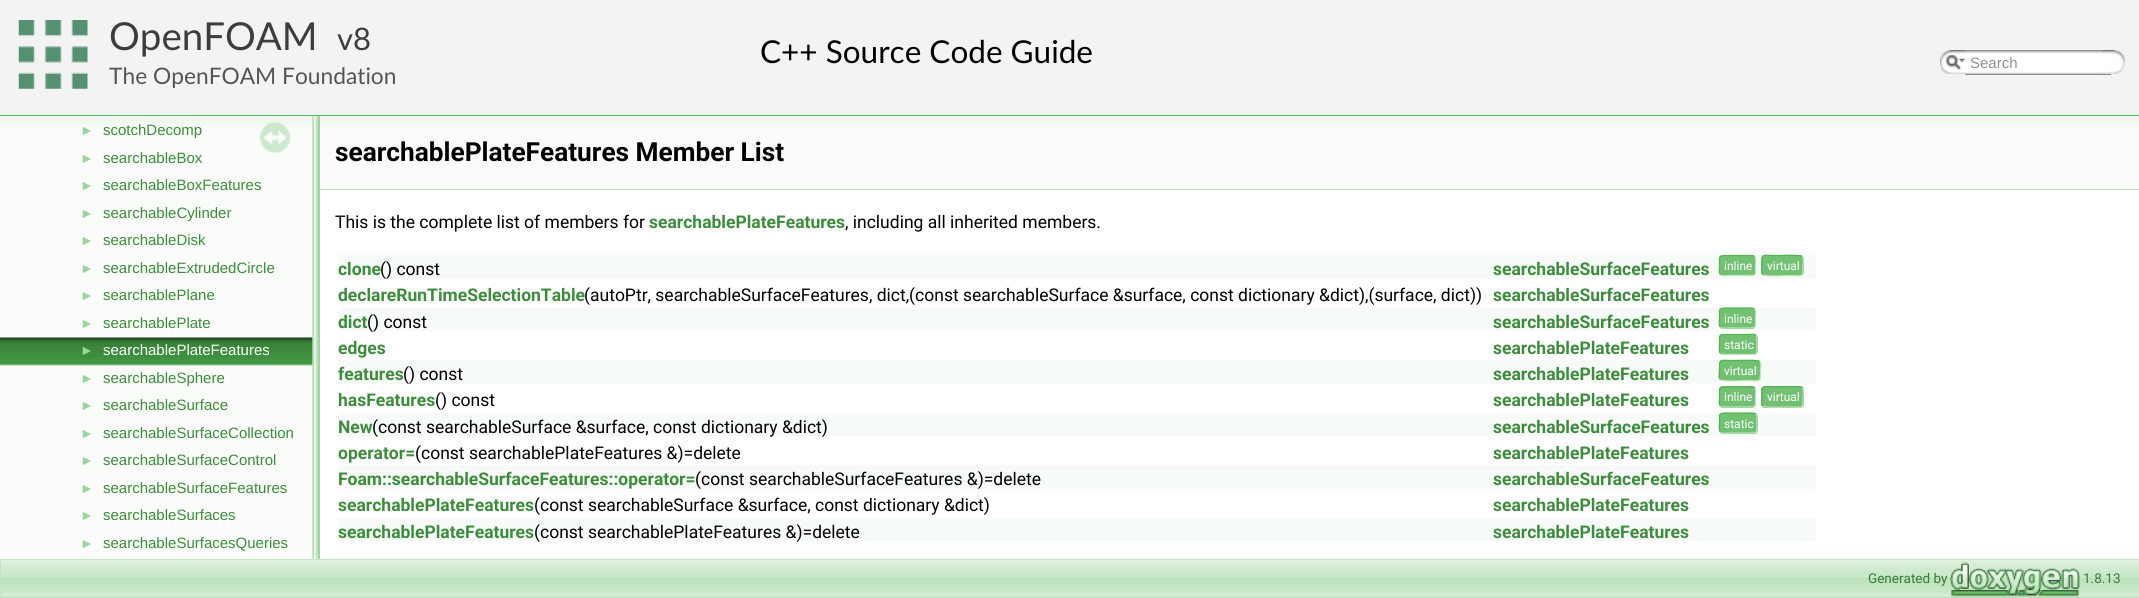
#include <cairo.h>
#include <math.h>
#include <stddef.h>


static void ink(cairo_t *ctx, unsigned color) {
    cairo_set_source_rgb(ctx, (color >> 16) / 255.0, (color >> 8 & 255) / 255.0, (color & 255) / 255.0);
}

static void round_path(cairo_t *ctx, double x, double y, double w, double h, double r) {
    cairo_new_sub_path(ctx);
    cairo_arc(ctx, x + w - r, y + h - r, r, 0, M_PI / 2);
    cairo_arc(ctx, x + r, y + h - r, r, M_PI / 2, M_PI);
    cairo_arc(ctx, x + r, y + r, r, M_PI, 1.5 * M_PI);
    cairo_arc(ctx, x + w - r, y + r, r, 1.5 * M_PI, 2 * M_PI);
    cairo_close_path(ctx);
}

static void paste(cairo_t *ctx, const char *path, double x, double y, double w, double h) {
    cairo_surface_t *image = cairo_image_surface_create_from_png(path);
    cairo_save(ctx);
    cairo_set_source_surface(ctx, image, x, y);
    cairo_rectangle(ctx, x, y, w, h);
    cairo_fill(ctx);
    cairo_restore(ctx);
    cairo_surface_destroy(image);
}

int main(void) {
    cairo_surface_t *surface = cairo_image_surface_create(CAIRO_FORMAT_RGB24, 2139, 598);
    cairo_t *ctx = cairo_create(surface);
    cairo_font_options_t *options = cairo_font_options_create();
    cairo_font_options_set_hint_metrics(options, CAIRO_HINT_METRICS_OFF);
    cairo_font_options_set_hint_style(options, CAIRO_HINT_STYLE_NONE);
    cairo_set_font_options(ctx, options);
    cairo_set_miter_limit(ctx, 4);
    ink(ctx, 0xFFFFFF);
    cairo_paint(ctx);
    ink(ctx, 0xF3F3F3);
    cairo_rectangle(ctx, 0, 0, 2139, 115);
    cairo_fill(ctx);
    ink(ctx, 0x53B453);
    cairo_rectangle(ctx, 0, 115, 2139, 1);
    cairo_fill(ctx);
    paste(ctx, "media/1.png", 18, 20, 70, 69);
    cairo_select_font_face(ctx, "Lato", CAIRO_FONT_SLANT_NORMAL, CAIRO_FONT_WEIGHT_NORMAL);
    cairo_set_font_size(ctx, 38.5);
    ink(ctx, 0x3D3D3D);
    cairo_move_to(ctx, 109, 50);
    cairo_show_text(ctx, "OpenFOAM");
    cairo_set_font_size(ctx, 31);
    cairo_move_to(ctx, 337, 50);
    cairo_show_text(ctx, "v8");
    cairo_set_font_size(ctx, 22.75);
    ink(ctx, 0x555555);
    cairo_move_to(ctx, 109, 84);
    cairo_show_text(ctx, "The OpenFOAM Foundation");
    paste(ctx, "media/2.png", 1940, 50, 25, 24);
    paste(ctx, "media/3.png", 1946, 54, 19, 16);
    paste(ctx, "media/4.png", 1965, 50, 147, 25);
    cairo_select_font_face(ctx, "Liberation Sans", CAIRO_FONT_SLANT_NORMAL, CAIRO_FONT_WEIGHT_NORMAL);
    cairo_set_font_size(ctx, 15);
    ink(ctx, 0x909090);
    cairo_move_to(ctx, 1970, 68);
    cairo_show_text(ctx, "Search");
    paste(ctx, "media/5.png", 2102, 50, 23, 24);
    cairo_select_font_face(ctx, "Lato", CAIRO_FONT_SLANT_NORMAL, CAIRO_FONT_WEIGHT_NORMAL);
    cairo_set_font_size(ctx, 31.5);
    ink(ctx, 0x000000);
    cairo_move_to(ctx, 760, 63);
    cairo_show_text(ctx, "C++ Source Code Guide");
    paste(ctx, "media/11.png", 1, 558, 2138, 40);
    ink(ctx, 0xF9FCF9);
    cairo_rectangle(ctx, 0, 116, 313, 443);
    cairo_fill(ctx);
    paste(ctx, "media/6.png", 0, 116, 313, 10);
    paste(ctx, "media/7.png", 260, 122, 30, 31);
    cairo_select_font_face(ctx, "Liberation Sans", CAIRO_FONT_SLANT_NORMAL, CAIRO_FONT_WEIGHT_NORMAL);
    cairo_set_font_size(ctx, 14);
    ink(ctx, 0x9CD49C);
    cairo_move_to(ctx, 80, 135);
    cairo_show_text(ctx, "►");
    cairo_set_font_size(ctx, 15);
    ink(ctx, 0x3D8C3D);
    cairo_move_to(ctx, 103, 135);
    cairo_show_text(ctx, "scotchDecomp");
    cairo_set_font_size(ctx, 14);
    ink(ctx, 0x9CD49C);
    cairo_move_to(ctx, 80, 163);
    cairo_show_text(ctx, "►");
    cairo_set_font_size(ctx, 15);
    ink(ctx, 0x3D8C3D);
    cairo_move_to(ctx, 103, 163);
    cairo_show_text(ctx, "searchableBox");
    cairo_set_font_size(ctx, 14);
    ink(ctx, 0x9CD49C);
    cairo_move_to(ctx, 80, 190);
    cairo_show_text(ctx, "►");
    cairo_set_font_size(ctx, 15);
    ink(ctx, 0x3D8C3D);
    cairo_move_to(ctx, 103, 190);
    cairo_show_text(ctx, "searchableBoxFeatures");
    cairo_set_font_size(ctx, 14);
    ink(ctx, 0x9CD49C);
    cairo_move_to(ctx, 80, 218);
    cairo_show_text(ctx, "►");
    cairo_set_font_size(ctx, 15);
    ink(ctx, 0x3D8C3D);
    cairo_move_to(ctx, 103, 218);
    cairo_show_text(ctx, "searchableCylinder");
    cairo_set_font_size(ctx, 14);
    ink(ctx, 0x9CD49C);
    cairo_move_to(ctx, 80, 245);
    cairo_show_text(ctx, "►");
    cairo_set_font_size(ctx, 15);
    ink(ctx, 0x3D8C3D);
    cairo_move_to(ctx, 103, 245);
    cairo_show_text(ctx, "searchableDisk");
    cairo_set_font_size(ctx, 14);
    ink(ctx, 0x9CD49C);
    cairo_move_to(ctx, 80, 273);
    cairo_show_text(ctx, "►");
    cairo_set_font_size(ctx, 15);
    ink(ctx, 0x3D8C3D);
    cairo_move_to(ctx, 103, 273);
    cairo_show_text(ctx, "searchableExtrudedCircle");
    cairo_set_font_size(ctx, 14);
    ink(ctx, 0x9CD49C);
    cairo_move_to(ctx, 80, 300);
    cairo_show_text(ctx, "►");
    cairo_set_font_size(ctx, 15);
    ink(ctx, 0x3D8C3D);
    cairo_move_to(ctx, 103, 300);
    cairo_show_text(ctx, "searchablePlane");
    cairo_set_font_size(ctx, 14);
    ink(ctx, 0x9CD49C);
    cairo_move_to(ctx, 80, 328);
    cairo_show_text(ctx, "►");
    cairo_set_font_size(ctx, 15);
    ink(ctx, 0x3D8C3D);
    cairo_move_to(ctx, 103, 328);
    cairo_show_text(ctx, "searchablePlate");
    paste(ctx, "media/8.png", 0, 337, 313, 29);
    cairo_set_font_size(ctx, 14);
    ink(ctx, 0x9CD49C);
    cairo_move_to(ctx, 80, 355);
    cairo_show_text(ctx, "►");
    cairo_set_font_size(ctx, 15);
    ink(ctx, 0xFFFFFF);
    cairo_move_to(ctx, 103, 355);
    cairo_show_text(ctx, "searchablePlateFeatures");
    cairo_set_font_size(ctx, 14);
    ink(ctx, 0x9CD49C);
    cairo_move_to(ctx, 80, 383);
    cairo_show_text(ctx, "►");
    cairo_set_font_size(ctx, 15);
    ink(ctx, 0x3D8C3D);
    cairo_move_to(ctx, 103, 383);
    cairo_show_text(ctx, "searchableSphere");
    cairo_set_font_size(ctx, 14);
    ink(ctx, 0x9CD49C);
    cairo_move_to(ctx, 80, 410);
    cairo_show_text(ctx, "►");
    cairo_set_font_size(ctx, 15);
    ink(ctx, 0x3D8C3D);
    cairo_move_to(ctx, 103, 410);
    cairo_show_text(ctx, "searchableSurface");
    cairo_set_font_size(ctx, 14);
    ink(ctx, 0x9CD49C);
    cairo_move_to(ctx, 80, 438);
    cairo_show_text(ctx, "►");
    cairo_set_font_size(ctx, 15);
    ink(ctx, 0x3D8C3D);
    cairo_move_to(ctx, 103, 438);
    cairo_show_text(ctx, "searchableSurfaceCollection");
    cairo_set_font_size(ctx, 14);
    ink(ctx, 0x9CD49C);
    cairo_move_to(ctx, 80, 465);
    cairo_show_text(ctx, "►");
    cairo_set_font_size(ctx, 15);
    ink(ctx, 0x3D8C3D);
    cairo_move_to(ctx, 103, 465);
    cairo_show_text(ctx, "searchableSurfaceControl");
    cairo_set_font_size(ctx, 14);
    ink(ctx, 0x9CD49C);
    cairo_move_to(ctx, 80, 493);
    cairo_show_text(ctx, "►");
    cairo_set_font_size(ctx, 15);
    ink(ctx, 0x3D8C3D);
    cairo_move_to(ctx, 103, 493);
    cairo_show_text(ctx, "searchableSurfaceFeatures");
    cairo_set_font_size(ctx, 14);
    ink(ctx, 0x9CD49C);
    cairo_move_to(ctx, 80, 520);
    cairo_show_text(ctx, "►");
    cairo_set_font_size(ctx, 15);
    ink(ctx, 0x3D8C3D);
    cairo_move_to(ctx, 103, 520);
    cairo_show_text(ctx, "searchableSurfaces");
    cairo_set_font_size(ctx, 14);
    ink(ctx, 0x9CD49C);
    cairo_move_to(ctx, 80, 548);
    cairo_show_text(ctx, "►");
    cairo_set_font_size(ctx, 15);
    ink(ctx, 0x3D8C3D);
    cairo_move_to(ctx, 103, 548);
    cairo_show_text(ctx, "searchableSurfacesQueries");
    paste(ctx, "media/9.png", 312, 116, 8, 443);
    ink(ctx, 0xF9FCF9);
    cairo_rectangle(ctx, 320, 116, 1819, 73);
    cairo_fill(ctx);
    paste(ctx, "media/10.png", 320, 118, 1819, 8);
    ink(ctx, 0xC4E5C4);
    cairo_rectangle(ctx, 320, 189, 1819, 1);
    cairo_fill(ctx);
    cairo_select_font_face(ctx, "Roboto", CAIRO_FONT_SLANT_NORMAL, CAIRO_FONT_WEIGHT_BOLD);
    cairo_set_font_size(ctx, 26.25);
    ink(ctx, 0x000000);
    cairo_move_to(ctx, 335, 161);
    cairo_show_text(ctx, "searchablePlateFeatures Member List");
    cairo_select_font_face(ctx, "Roboto", CAIRO_FONT_SLANT_NORMAL, CAIRO_FONT_WEIGHT_NORMAL);
    cairo_set_font_size(ctx, 17.5);
    cairo_move_to(ctx, 335, 228);
    cairo_show_text(ctx, "This is the complete list of members for");
    cairo_select_font_face(ctx, "Roboto", CAIRO_FONT_SLANT_NORMAL, CAIRO_FONT_WEIGHT_BOLD);
    ink(ctx, 0x3D8C3D);
    cairo_move_to(ctx, 649, 228);
    cairo_show_text(ctx, "searchablePlateFeatures");
    cairo_select_font_face(ctx, "Roboto", CAIRO_FONT_SLANT_NORMAL, CAIRO_FONT_WEIGHT_NORMAL);
    ink(ctx, 0x000000);
    cairo_move_to(ctx, 845, 228);
    cairo_show_text(ctx, ", including all inherited members.");
    ink(ctx, 0xF7FBF7);
    cairo_rectangle(ctx, 338, 255, 1478, 24);
    cairo_fill(ctx);
    cairo_select_font_face(ctx, "Roboto", CAIRO_FONT_SLANT_NORMAL, CAIRO_FONT_WEIGHT_BOLD);
    ink(ctx, 0x3D8C3D);
    cairo_move_to(ctx, 338, 275);
    cairo_show_text(ctx, "clone");
    cairo_select_font_face(ctx, "Roboto", CAIRO_FONT_SLANT_NORMAL, CAIRO_FONT_WEIGHT_NORMAL);
    ink(ctx, 0x000000);
    cairo_move_to(ctx, 380, 275);
    cairo_show_text(ctx, "() const");
    cairo_select_font_face(ctx, "Roboto", CAIRO_FONT_SLANT_NORMAL, CAIRO_FONT_WEIGHT_BOLD);
    ink(ctx, 0x3D8C3D);
    cairo_move_to(ctx, 1493, 275);
    cairo_show_text(ctx, "searchableSurfaceFeatures");
    ink(ctx, 0x72C172);
    round_path(ctx, 1719, 255, 37, 21, 4);
    cairo_fill(ctx);
    cairo_new_path(ctx);
    cairo_move_to(ctx, 1754.5, 256.5);
    cairo_curve_to(ctx, 1756.5, 258.5, 1755.5, 263.5, 1755.5, 265.5);
    cairo_curve_to(ctx, 1755.5, 275.5, 1757, 275.5, 1747.5, 275.5);
    cairo_line_to(ctx, 1727.5, 275.5);
    cairo_curve_to(ctx, 1726, 275.5, 1722, 276.5, 1720.5, 274.5);
    ink(ctx, 0xC4E5C4);
    cairo_set_line_width(ctx, 1.2);
    cairo_stroke(ctx);
    cairo_new_path(ctx);
    cairo_move_to(ctx, 1720.5, 274.5);
    cairo_curve_to(ctx, 1718.5, 273, 1719.5, 267.5, 1719.5, 265.5);
    cairo_curve_to(ctx, 1719.5, 256, 1718, 255.5, 1727.5, 255.5);
    cairo_line_to(ctx, 1747.5, 255.5);
    cairo_curve_to(ctx, 1749, 255.5, 1753, 255, 1754.5, 256.5);
    ink(ctx, 0x53B453);
    cairo_stroke(ctx);
    cairo_select_font_face(ctx, "Roboto", CAIRO_FONT_SLANT_NORMAL, CAIRO_FONT_WEIGHT_NORMAL);
    cairo_set_font_size(ctx, 12);
    ink(ctx, 0xFFFFFF);
    cairo_move_to(ctx, 1724, 270);
    cairo_show_text(ctx, "inline");
    ink(ctx, 0x72C172);
    round_path(ctx, 1761, 255, 43, 21, 4);
    cairo_fill(ctx);
    cairo_new_path(ctx);
    cairo_move_to(ctx, 1802, 256.5);
    cairo_curve_to(ctx, 1804.5, 258.5, 1803, 263, 1803, 265.5);
    cairo_curve_to(ctx, 1803, 278.5, 1803, 275.5, 1788.5, 275.5);
    cairo_curve_to(ctx, 1784.5, 275.5, 1765, 277, 1763, 274.5);
    ink(ctx, 0xC4E5C4);
    cairo_stroke(ctx);
    cairo_new_path(ctx);
    cairo_move_to(ctx, 1763, 274.5);
    cairo_curve_to(ctx, 1760.5, 272.5, 1762, 268, 1762, 265.5);
    cairo_curve_to(ctx, 1762, 252.5, 1762, 255.5, 1776.5, 255.5);
    cairo_curve_to(ctx, 1780.5, 255.5, 1800, 254.5, 1802, 256.5);
    ink(ctx, 0x53B453);
    cairo_stroke(ctx);
    ink(ctx, 0xFFFFFF);
    cairo_move_to(ctx, 1767, 270);
    cairo_show_text(ctx, "virtual");
    cairo_select_font_face(ctx, "Roboto", CAIRO_FONT_SLANT_NORMAL, CAIRO_FONT_WEIGHT_BOLD);
    cairo_set_font_size(ctx, 17.5);
    ink(ctx, 0x3D8C3D);
    cairo_move_to(ctx, 338, 301);
    cairo_show_text(ctx, "declareRunTimeSelectionTable");
    cairo_select_font_face(ctx, "Roboto", CAIRO_FONT_SLANT_NORMAL, CAIRO_FONT_WEIGHT_NORMAL);
    ink(ctx, 0x000000);
    cairo_move_to(ctx, 584, 301);
    cairo_show_text(ctx, "(autoPtr, searchableSurfaceFeatures, dict,(const searchableSurface &surface, const dictionary &dict),(surface, dict))");
    cairo_select_font_face(ctx, "Roboto", CAIRO_FONT_SLANT_NORMAL, CAIRO_FONT_WEIGHT_BOLD);
    ink(ctx, 0x3D8C3D);
    cairo_move_to(ctx, 1493, 301);
    cairo_show_text(ctx, "searchableSurfaceFeatures");
    ink(ctx, 0xF7FBF7);
    cairo_rectangle(ctx, 338, 308, 1478, 23);
    cairo_fill(ctx);
    ink(ctx, 0x3D8C3D);
    cairo_move_to(ctx, 338, 328);
    cairo_show_text(ctx, "dict");
    cairo_select_font_face(ctx, "Roboto", CAIRO_FONT_SLANT_NORMAL, CAIRO_FONT_WEIGHT_NORMAL);
    ink(ctx, 0x000000);
    cairo_move_to(ctx, 367, 328);
    cairo_show_text(ctx, "() const");
    cairo_select_font_face(ctx, "Roboto", CAIRO_FONT_SLANT_NORMAL, CAIRO_FONT_WEIGHT_BOLD);
    ink(ctx, 0x3D8C3D);
    cairo_move_to(ctx, 1493, 328);
    cairo_show_text(ctx, "searchableSurfaceFeatures");
    ink(ctx, 0x72C172);
    round_path(ctx, 1719, 308, 37, 21, 4);
    cairo_fill(ctx);
    cairo_new_path(ctx);
    cairo_move_to(ctx, 1754.5, 309);
    cairo_curve_to(ctx, 1756.5, 311, 1755.5, 316, 1755.5, 318);
    cairo_curve_to(ctx, 1755.5, 328, 1757, 328, 1747.5, 328);
    cairo_line_to(ctx, 1727.5, 328);
    cairo_curve_to(ctx, 1726, 328, 1722, 329, 1720.5, 327);
    ink(ctx, 0xC4E5C4);
    cairo_stroke(ctx);
    cairo_new_path(ctx);
    cairo_move_to(ctx, 1720.5, 327);
    cairo_curve_to(ctx, 1718.5, 325.5, 1719.5, 320, 1719.5, 318);
    cairo_curve_to(ctx, 1719.5, 308.5, 1718, 308, 1727.5, 308);
    cairo_line_to(ctx, 1747.5, 308);
    cairo_curve_to(ctx, 1749, 308, 1753, 307.5, 1754.5, 309);
    ink(ctx, 0x53B453);
    cairo_stroke(ctx);
    cairo_select_font_face(ctx, "Roboto", CAIRO_FONT_SLANT_NORMAL, CAIRO_FONT_WEIGHT_NORMAL);
    cairo_set_font_size(ctx, 12);
    ink(ctx, 0xFFFFFF);
    cairo_move_to(ctx, 1724, 323);
    cairo_show_text(ctx, "inline");
    cairo_select_font_face(ctx, "Roboto", CAIRO_FONT_SLANT_NORMAL, CAIRO_FONT_WEIGHT_BOLD);
    cairo_set_font_size(ctx, 17.5);
    ink(ctx, 0x3D8C3D);
    cairo_move_to(ctx, 338, 354);
    cairo_show_text(ctx, "edges");
    cairo_move_to(ctx, 1493, 354);
    cairo_show_text(ctx, "searchablePlateFeatures");
    ink(ctx, 0x72C172);
    round_path(ctx, 1719, 334, 39, 21, 4);
    cairo_fill(ctx);
    cairo_new_path(ctx);
    cairo_move_to(ctx, 1756, 335.5);
    cairo_curve_to(ctx, 1757.5, 337, 1757, 342.5, 1757, 344.5);
    cairo_curve_to(ctx, 1757, 354, 1758.5, 354.5, 1748.5, 354.5);
    cairo_line_to(ctx, 1727.5, 354.5);
    cairo_curve_to(ctx, 1726, 354.5, 1722, 355, 1720.5, 353.5);
    ink(ctx, 0xC4E5C4);
    cairo_stroke(ctx);
    cairo_new_path(ctx);
    cairo_move_to(ctx, 1720.5, 353.5);
    cairo_curve_to(ctx, 1718.5, 351.5, 1719.5, 346.5, 1719.5, 344.5);
    cairo_curve_to(ctx, 1719.5, 334.5, 1718, 334.5, 1727.5, 334.5);
    cairo_line_to(ctx, 1748.5, 334.5);
    cairo_curve_to(ctx, 1750, 334.5, 1754, 333.5, 1756, 335.5);
    ink(ctx, 0x53B453);
    cairo_stroke(ctx);
    cairo_select_font_face(ctx, "Roboto", CAIRO_FONT_SLANT_NORMAL, CAIRO_FONT_WEIGHT_NORMAL);
    cairo_set_font_size(ctx, 12);
    ink(ctx, 0xFFFFFF);
    cairo_move_to(ctx, 1724, 349);
    cairo_show_text(ctx, "static");
    ink(ctx, 0xF7FBF7);
    cairo_rectangle(ctx, 338, 360, 1478, 24);
    cairo_fill(ctx);
    cairo_select_font_face(ctx, "Roboto", CAIRO_FONT_SLANT_NORMAL, CAIRO_FONT_WEIGHT_BOLD);
    cairo_set_font_size(ctx, 17.5);
    ink(ctx, 0x3D8C3D);
    cairo_move_to(ctx, 338, 380);
    cairo_show_text(ctx, "features");
    cairo_select_font_face(ctx, "Roboto", CAIRO_FONT_SLANT_NORMAL, CAIRO_FONT_WEIGHT_NORMAL);
    ink(ctx, 0x000000);
    cairo_move_to(ctx, 403, 380);
    cairo_show_text(ctx, "() const");
    cairo_select_font_face(ctx, "Roboto", CAIRO_FONT_SLANT_NORMAL, CAIRO_FONT_WEIGHT_BOLD);
    ink(ctx, 0x3D8C3D);
    cairo_move_to(ctx, 1493, 380);
    cairo_show_text(ctx, "searchablePlateFeatures");
    ink(ctx, 0x72C172);
    round_path(ctx, 1719, 360, 42, 21, 4);
    cairo_fill(ctx);
    cairo_new_path(ctx);
    cairo_move_to(ctx, 1759.5, 361.5);
    cairo_curve_to(ctx, 1762, 363.5, 1760.5, 368, 1760.5, 370.5);
    cairo_curve_to(ctx, 1760.5, 383.5, 1760.5, 380.5, 1746, 380.5);
    cairo_curve_to(ctx, 1742, 380.5, 1722.5, 382, 1720.5, 379.5);
    ink(ctx, 0xC4E5C4);
    cairo_stroke(ctx);
    cairo_new_path(ctx);
    cairo_move_to(ctx, 1720.5, 379.5);
    cairo_curve_to(ctx, 1718, 377.5, 1719.5, 373, 1719.5, 370.5);
    cairo_curve_to(ctx, 1719.5, 357.5, 1719.5, 360.5, 1734, 360.5);
    cairo_curve_to(ctx, 1738, 360.5, 1757.5, 359.5, 1759.5, 361.5);
    ink(ctx, 0x53B453);
    cairo_stroke(ctx);
    cairo_select_font_face(ctx, "Roboto", CAIRO_FONT_SLANT_NORMAL, CAIRO_FONT_WEIGHT_NORMAL);
    cairo_set_font_size(ctx, 12);
    ink(ctx, 0xFFFFFF);
    cairo_move_to(ctx, 1724, 375);
    cairo_show_text(ctx, "virtual");
    cairo_select_font_face(ctx, "Roboto", CAIRO_FONT_SLANT_NORMAL, CAIRO_FONT_WEIGHT_BOLD);
    cairo_set_font_size(ctx, 17.5);
    ink(ctx, 0x3D8C3D);
    cairo_move_to(ctx, 338, 406);
    cairo_show_text(ctx, "hasFeatures");
    cairo_select_font_face(ctx, "Roboto", CAIRO_FONT_SLANT_NORMAL, CAIRO_FONT_WEIGHT_NORMAL);
    ink(ctx, 0x000000);
    cairo_move_to(ctx, 435, 406);
    cairo_show_text(ctx, "() const");
    cairo_select_font_face(ctx, "Roboto", CAIRO_FONT_SLANT_NORMAL, CAIRO_FONT_WEIGHT_BOLD);
    ink(ctx, 0x3D8C3D);
    cairo_move_to(ctx, 1493, 406);
    cairo_show_text(ctx, "searchablePlateFeatures");
    ink(ctx, 0x72C172);
    round_path(ctx, 1719, 386, 37, 22, 4);
    cairo_fill(ctx);
    cairo_new_path(ctx);
    cairo_move_to(ctx, 1754.5, 388);
    cairo_curve_to(ctx, 1756.5, 389.5, 1755.5, 395, 1755.5, 397);
    cairo_curve_to(ctx, 1755.5, 406.5, 1757, 407, 1747.5, 407);
    cairo_line_to(ctx, 1727.5, 407);
    cairo_curve_to(ctx, 1726, 407, 1722, 407.5, 1720.5, 406);
    ink(ctx, 0xC4E5C4);
    cairo_stroke(ctx);
    cairo_new_path(ctx);
    cairo_move_to(ctx, 1720.5, 406);
    cairo_curve_to(ctx, 1718.5, 404, 1719.5, 399, 1719.5, 397);
    cairo_curve_to(ctx, 1719.5, 387, 1718, 387, 1727.5, 387);
    cairo_line_to(ctx, 1747.5, 387);
    cairo_curve_to(ctx, 1749, 387, 1753, 386, 1754.5, 388);
    ink(ctx, 0x53B453);
    cairo_stroke(ctx);
    cairo_select_font_face(ctx, "Roboto", CAIRO_FONT_SLANT_NORMAL, CAIRO_FONT_WEIGHT_NORMAL);
    cairo_set_font_size(ctx, 12);
    ink(ctx, 0xFFFFFF);
    cairo_move_to(ctx, 1724, 401);
    cairo_show_text(ctx, "inline");
    ink(ctx, 0x72C172);
    round_path(ctx, 1761, 386, 43, 22, 4);
    cairo_fill(ctx);
    cairo_new_path(ctx);
    cairo_move_to(ctx, 1802, 388);
    cairo_curve_to(ctx, 1804.5, 390, 1803, 394.5, 1803, 397);
    cairo_curve_to(ctx, 1803, 410, 1803, 407, 1788.5, 407);
    cairo_curve_to(ctx, 1784.5, 407, 1765, 408, 1763, 406);
    ink(ctx, 0xC4E5C4);
    cairo_stroke(ctx);
    cairo_new_path(ctx);
    cairo_move_to(ctx, 1763, 406);
    cairo_curve_to(ctx, 1760.5, 404, 1762, 399.5, 1762, 397);
    cairo_curve_to(ctx, 1762, 384, 1762, 387, 1776.5, 387);
    cairo_curve_to(ctx, 1780.5, 387, 1800, 385.5, 1802, 388);
    ink(ctx, 0x53B453);
    cairo_stroke(ctx);
    ink(ctx, 0xFFFFFF);
    cairo_move_to(ctx, 1767, 401);
    cairo_show_text(ctx, "virtual");
    ink(ctx, 0xF7FBF7);
    cairo_rectangle(ctx, 338, 413, 1478, 23);
    cairo_fill(ctx);
    cairo_select_font_face(ctx, "Roboto", CAIRO_FONT_SLANT_NORMAL, CAIRO_FONT_WEIGHT_BOLD);
    cairo_set_font_size(ctx, 17.5);
    ink(ctx, 0x3D8C3D);
    cairo_move_to(ctx, 338, 433);
    cairo_show_text(ctx, "New");
    cairo_select_font_face(ctx, "Roboto", CAIRO_FONT_SLANT_NORMAL, CAIRO_FONT_WEIGHT_NORMAL);
    ink(ctx, 0x000000);
    cairo_move_to(ctx, 372, 433);
    cairo_show_text(ctx, "(const searchableSurface &surface, const dictionary &dict)");
    cairo_select_font_face(ctx, "Roboto", CAIRO_FONT_SLANT_NORMAL, CAIRO_FONT_WEIGHT_BOLD);
    ink(ctx, 0x3D8C3D);
    cairo_move_to(ctx, 1493, 433);
    cairo_show_text(ctx, "searchableSurfaceFeatures");
    ink(ctx, 0x72C172);
    round_path(ctx, 1719, 413, 39, 21, 4);
    cairo_fill(ctx);
    cairo_new_path(ctx);
    cairo_move_to(ctx, 1756, 414);
    cairo_curve_to(ctx, 1757.5, 416, 1757, 421, 1757, 423);
    cairo_curve_to(ctx, 1757, 433, 1758.5, 433, 1748.5, 433);
    cairo_line_to(ctx, 1727.5, 433);
    cairo_curve_to(ctx, 1726, 433, 1722, 434, 1720.5, 432);
    ink(ctx, 0xC4E5C4);
    cairo_stroke(ctx);
    cairo_new_path(ctx);
    cairo_move_to(ctx, 1720.5, 432);
    cairo_curve_to(ctx, 1718.5, 430.5, 1719.5, 425, 1719.5, 423);
    cairo_curve_to(ctx, 1719.5, 413.5, 1718, 413, 1727.5, 413);
    cairo_line_to(ctx, 1748.5, 413);
    cairo_curve_to(ctx, 1750, 413, 1754, 412.5, 1756, 414);
    ink(ctx, 0x53B453);
    cairo_stroke(ctx);
    cairo_select_font_face(ctx, "Roboto", CAIRO_FONT_SLANT_NORMAL, CAIRO_FONT_WEIGHT_NORMAL);
    cairo_set_font_size(ctx, 12);
    ink(ctx, 0xFFFFFF);
    cairo_move_to(ctx, 1724, 428);
    cairo_show_text(ctx, "static");
    cairo_select_font_face(ctx, "Roboto", CAIRO_FONT_SLANT_NORMAL, CAIRO_FONT_WEIGHT_BOLD);
    cairo_set_font_size(ctx, 17.5);
    ink(ctx, 0x3D8C3D);
    cairo_move_to(ctx, 338, 459);
    cairo_show_text(ctx, "operator=");
    cairo_select_font_face(ctx, "Roboto", CAIRO_FONT_SLANT_NORMAL, CAIRO_FONT_WEIGHT_NORMAL);
    ink(ctx, 0x000000);
    cairo_move_to(ctx, 415, 459);
    cairo_show_text(ctx, "(const searchablePlateFeatures &)=delete");
    cairo_select_font_face(ctx, "Roboto", CAIRO_FONT_SLANT_NORMAL, CAIRO_FONT_WEIGHT_BOLD);
    ink(ctx, 0x3D8C3D);
    cairo_move_to(ctx, 1493, 459);
    cairo_show_text(ctx, "searchablePlateFeatures");
    ink(ctx, 0xF7FBF7);
    cairo_rectangle(ctx, 338, 465, 1478, 24);
    cairo_fill(ctx);
    ink(ctx, 0x3D8C3D);
    cairo_move_to(ctx, 338, 485);
    cairo_show_text(ctx, "Foam::searchableSurfaceFeatures::operator=");
    cairo_select_font_face(ctx, "Roboto", CAIRO_FONT_SLANT_NORMAL, CAIRO_FONT_WEIGHT_NORMAL);
    ink(ctx, 0x000000);
    cairo_move_to(ctx, 695, 485);
    cairo_show_text(ctx, "(const searchableSurfaceFeatures &)=delete");
    cairo_select_font_face(ctx, "Roboto", CAIRO_FONT_SLANT_NORMAL, CAIRO_FONT_WEIGHT_BOLD);
    ink(ctx, 0x3D8C3D);
    cairo_move_to(ctx, 1493, 485);
    cairo_show_text(ctx, "searchableSurfaceFeatures");
    cairo_move_to(ctx, 338, 511);
    cairo_show_text(ctx, "searchablePlateFeatures");
    cairo_select_font_face(ctx, "Roboto", CAIRO_FONT_SLANT_NORMAL, CAIRO_FONT_WEIGHT_NORMAL);
    ink(ctx, 0x000000);
    cairo_move_to(ctx, 534, 511);
    cairo_show_text(ctx, "(const searchableSurface &surface, const dictionary &dict)");
    cairo_select_font_face(ctx, "Roboto", CAIRO_FONT_SLANT_NORMAL, CAIRO_FONT_WEIGHT_BOLD);
    ink(ctx, 0x3D8C3D);
    cairo_move_to(ctx, 1493, 511);
    cairo_show_text(ctx, "searchablePlateFeatures");
    ink(ctx, 0xF7FBF7);
    cairo_rectangle(ctx, 338, 518, 1478, 23);
    cairo_fill(ctx);
    ink(ctx, 0x3D8C3D);
    cairo_move_to(ctx, 338, 538);
    cairo_show_text(ctx, "searchablePlateFeatures");
    cairo_select_font_face(ctx, "Roboto", CAIRO_FONT_SLANT_NORMAL, CAIRO_FONT_WEIGHT_NORMAL);
    ink(ctx, 0x000000);
    cairo_move_to(ctx, 534, 538);
    cairo_show_text(ctx, "(const searchablePlateFeatures &)=delete");
    cairo_select_font_face(ctx, "Roboto", CAIRO_FONT_SLANT_NORMAL, CAIRO_FONT_WEIGHT_BOLD);
    ink(ctx, 0x3D8C3D);
    cairo_move_to(ctx, 1493, 538);
    cairo_show_text(ctx, "searchablePlateFeatures");
    cairo_rectangle(ctx, 0.5, 559.5, 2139, 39);
    ink(ctx, 0xC2E4C2);
    cairo_set_line_width(ctx, 1);
    cairo_stroke(ctx);
    cairo_select_font_face(ctx, "Roboto", CAIRO_FONT_SLANT_NORMAL, CAIRO_FONT_WEIGHT_NORMAL);
    cairo_set_font_size(ctx, 13.5);
    ink(ctx, 0x367C36);
    cairo_move_to(ctx, 1868, 583);
    cairo_show_text(ctx, "Generated by");
    paste(ctx, "media/12.png", 1950, 562, 130, 35);
    cairo_move_to(ctx, 2083, 583);
    cairo_show_text(ctx, "1.8.13");
    cairo_surface_write_to_png(surface, "image.png");
    cairo_font_options_destroy(options);
    cairo_destroy(ctx);
    cairo_surface_destroy(surface);
    return 0;
}
